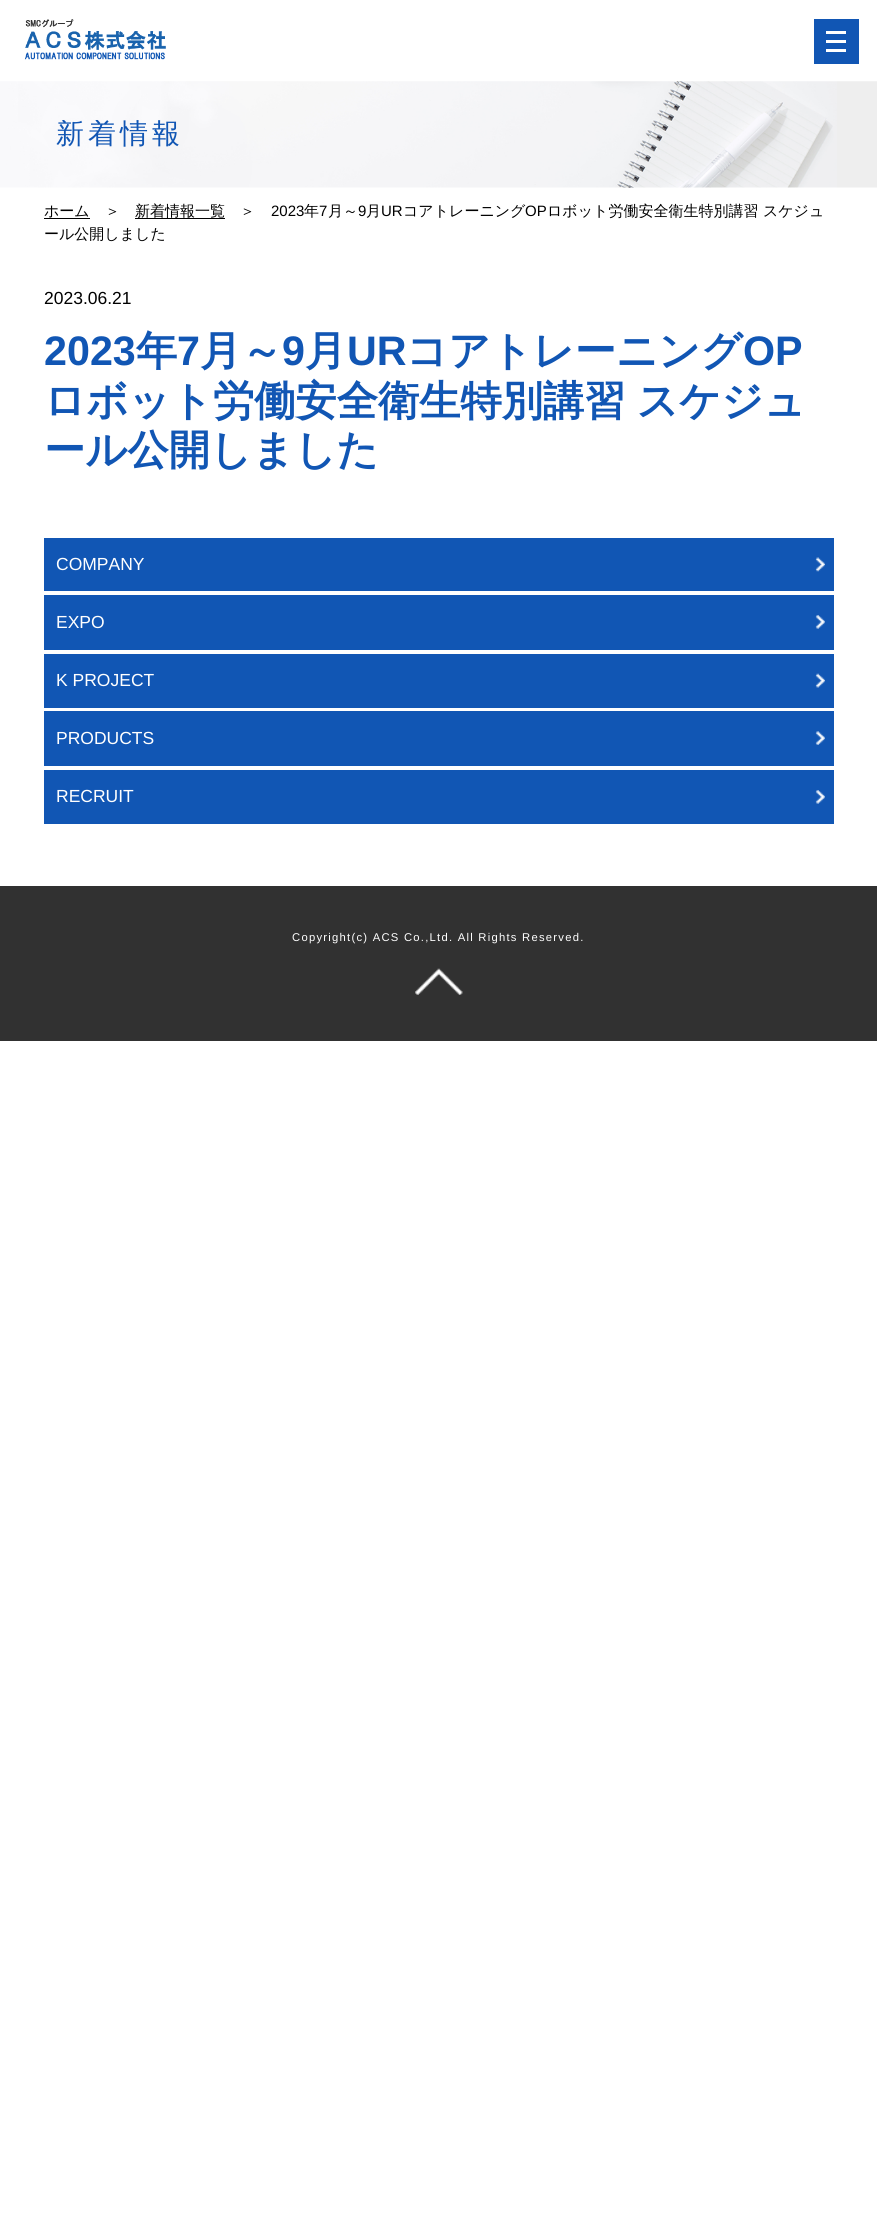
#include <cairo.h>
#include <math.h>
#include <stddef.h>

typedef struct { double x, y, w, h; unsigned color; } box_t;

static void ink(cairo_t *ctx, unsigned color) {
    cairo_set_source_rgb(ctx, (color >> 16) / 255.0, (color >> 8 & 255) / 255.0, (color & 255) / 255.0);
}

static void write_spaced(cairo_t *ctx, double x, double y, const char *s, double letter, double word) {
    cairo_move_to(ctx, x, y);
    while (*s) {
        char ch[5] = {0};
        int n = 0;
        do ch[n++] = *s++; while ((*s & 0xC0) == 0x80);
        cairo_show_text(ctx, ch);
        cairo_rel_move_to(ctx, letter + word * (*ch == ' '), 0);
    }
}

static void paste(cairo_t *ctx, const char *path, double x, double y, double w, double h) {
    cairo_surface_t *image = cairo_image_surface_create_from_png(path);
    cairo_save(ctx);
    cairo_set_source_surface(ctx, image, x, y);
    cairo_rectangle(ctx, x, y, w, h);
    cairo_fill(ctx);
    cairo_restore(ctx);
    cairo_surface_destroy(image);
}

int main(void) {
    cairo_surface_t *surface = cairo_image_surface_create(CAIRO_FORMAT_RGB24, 877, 2221);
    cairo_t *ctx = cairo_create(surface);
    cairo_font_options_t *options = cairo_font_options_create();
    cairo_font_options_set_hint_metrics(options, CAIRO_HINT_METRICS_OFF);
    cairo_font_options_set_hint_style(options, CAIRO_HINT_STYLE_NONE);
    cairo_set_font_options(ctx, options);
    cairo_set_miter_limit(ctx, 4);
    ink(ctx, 0xFFFFFF);
    cairo_paint(ctx);
    paste(ctx, "media/1.png", 24, 19, 142, 41);
    {
        static const box_t items[] = {
            {814, 19, 45, 45, 0x1156B4},
            {826, 31, 20, 3, 0xFFFFFF},
            {826, 40, 20, 3, 0xFFFFFF},
            {826, 49, 20, 3, 0xFFFFFF},
        };
        for (size_t i = 0; i < sizeof items / sizeof *items; i++) {
            ink(ctx, items[i].color);
            cairo_rectangle(ctx, items[i].x, items[i].y, items[i].w, items[i].h);
            cairo_fill(ctx);
        }
    }
    paste(ctx, "media/2.png", 0, 81, 877, 107);
    cairo_save(ctx);
    cairo_rectangle(ctx, 44, 120, 790, 29);
    cairo_clip(ctx);
    cairo_select_font_face(ctx, "WenQuanYi Zen Hei Medium", CAIRO_FONT_SLANT_NORMAL, CAIRO_FONT_WEIGHT_NORMAL);
    cairo_set_font_size(ctx, 28);
    ink(ctx, 0x1156B4);
    write_spaced(ctx, 56, 143, "新着情報", 4, 0);
    cairo_restore(ctx);
    cairo_select_font_face(ctx, "WenQuanYi Zen Hei Medium", CAIRO_FONT_SLANT_NORMAL, CAIRO_FONT_WEIGHT_NORMAL);
    cairo_set_font_size(ctx, 15);
    ink(ctx, 0x000000);
    cairo_move_to(ctx, 44, 216);
    cairo_show_text(ctx, "ホーム");
    cairo_rectangle(ctx, 44, 218, 46, 1);
    cairo_fill(ctx);
    cairo_move_to(ctx, 105, 216);
    cairo_show_text(ctx, "＞");
    cairo_move_to(ctx, 135, 216);
    cairo_show_text(ctx, "新着情報一覧");
    cairo_rectangle(ctx, 135, 218, 90, 1);
    cairo_fill(ctx);
    cairo_move_to(ctx, 240, 216);
    cairo_show_text(ctx, "＞");
    cairo_select_font_face(ctx, "Liberation Sans", CAIRO_FONT_SLANT_NORMAL, CAIRO_FONT_WEIGHT_NORMAL);
    cairo_move_to(ctx, 271, 216);
    cairo_show_text(ctx, "2023");
    cairo_select_font_face(ctx, "WenQuanYi Zen Hei Medium", CAIRO_FONT_SLANT_NORMAL, CAIRO_FONT_WEIGHT_NORMAL);
    cairo_move_to(ctx, 304, 216);
    cairo_show_text(ctx, "年");
    cairo_select_font_face(ctx, "Liberation Sans", CAIRO_FONT_SLANT_NORMAL, CAIRO_FONT_WEIGHT_NORMAL);
    cairo_move_to(ctx, 319, 216);
    cairo_show_text(ctx, "7");
    cairo_select_font_face(ctx, "WenQuanYi Zen Hei Medium", CAIRO_FONT_SLANT_NORMAL, CAIRO_FONT_WEIGHT_NORMAL);
    cairo_move_to(ctx, 328, 216);
    cairo_show_text(ctx, "月～");
    cairo_select_font_face(ctx, "Liberation Sans", CAIRO_FONT_SLANT_NORMAL, CAIRO_FONT_WEIGHT_NORMAL);
    cairo_move_to(ctx, 358, 216);
    cairo_show_text(ctx, "9");
    cairo_select_font_face(ctx, "WenQuanYi Zen Hei Medium", CAIRO_FONT_SLANT_NORMAL, CAIRO_FONT_WEIGHT_NORMAL);
    cairo_move_to(ctx, 366, 216);
    cairo_show_text(ctx, "月");
    cairo_select_font_face(ctx, "Liberation Sans", CAIRO_FONT_SLANT_NORMAL, CAIRO_FONT_WEIGHT_NORMAL);
    cairo_move_to(ctx, 381, 216);
    cairo_show_text(ctx, "UR");
    cairo_select_font_face(ctx, "WenQuanYi Zen Hei Medium", CAIRO_FONT_SLANT_NORMAL, CAIRO_FONT_WEIGHT_NORMAL);
    cairo_move_to(ctx, 403, 216);
    cairo_show_text(ctx, "コアトレーニング");
    cairo_select_font_face(ctx, "Liberation Sans", CAIRO_FONT_SLANT_NORMAL, CAIRO_FONT_WEIGHT_NORMAL);
    cairo_move_to(ctx, 525, 216);
    cairo_show_text(ctx, "OP");
    cairo_select_font_face(ctx, "WenQuanYi Zen Hei Medium", CAIRO_FONT_SLANT_NORMAL, CAIRO_FONT_WEIGHT_NORMAL);
    cairo_move_to(ctx, 547, 216);
    cairo_show_text(ctx, "ロボット労働安全衛生特別講習 スケジュ");
    cairo_move_to(ctx, 44, 239);
    cairo_show_text(ctx, "ール公開しました");
    cairo_select_font_face(ctx, "Liberation Sans", CAIRO_FONT_SLANT_NORMAL, CAIRO_FONT_WEIGHT_NORMAL);
    cairo_set_font_size(ctx, 17.5);
    cairo_move_to(ctx, 44, 304);
    cairo_show_text(ctx, "2023.06.21");
    cairo_select_font_face(ctx, "Liberation Sans", CAIRO_FONT_SLANT_NORMAL, CAIRO_FONT_WEIGHT_BOLD);
    cairo_set_font_size(ctx, 41.25);
    ink(ctx, 0x1156B4);
    cairo_move_to(ctx, 44, 365);
    cairo_show_text(ctx, "2023");
    cairo_select_font_face(ctx, "WenQuanYi Zen Hei", CAIRO_FONT_SLANT_NORMAL, CAIRO_FONT_WEIGHT_BOLD);
    cairo_move_to(ctx, 136, 365);
    cairo_show_text(ctx, "年");
    cairo_select_font_face(ctx, "Liberation Sans", CAIRO_FONT_SLANT_NORMAL, CAIRO_FONT_WEIGHT_BOLD);
    cairo_move_to(ctx, 177, 365);
    cairo_show_text(ctx, "7");
    cairo_select_font_face(ctx, "WenQuanYi Zen Hei", CAIRO_FONT_SLANT_NORMAL, CAIRO_FONT_WEIGHT_BOLD);
    cairo_move_to(ctx, 200, 365);
    cairo_show_text(ctx, "月～");
    cairo_select_font_face(ctx, "Liberation Sans", CAIRO_FONT_SLANT_NORMAL, CAIRO_FONT_WEIGHT_BOLD);
    cairo_move_to(ctx, 282, 365);
    cairo_show_text(ctx, "9");
    cairo_select_font_face(ctx, "WenQuanYi Zen Hei", CAIRO_FONT_SLANT_NORMAL, CAIRO_FONT_WEIGHT_BOLD);
    cairo_move_to(ctx, 305, 365);
    cairo_show_text(ctx, "月");
    cairo_select_font_face(ctx, "Liberation Sans", CAIRO_FONT_SLANT_NORMAL, CAIRO_FONT_WEIGHT_BOLD);
    cairo_move_to(ctx, 347, 365);
    cairo_show_text(ctx, "UR");
    cairo_select_font_face(ctx, "WenQuanYi Zen Hei", CAIRO_FONT_SLANT_NORMAL, CAIRO_FONT_WEIGHT_BOLD);
    cairo_move_to(ctx, 406, 365);
    cairo_show_text(ctx, "コアトレーニング");
    cairo_select_font_face(ctx, "Liberation Sans", CAIRO_FONT_SLANT_NORMAL, CAIRO_FONT_WEIGHT_BOLD);
    cairo_move_to(ctx, 743, 365);
    cairo_show_text(ctx, "OP");
    cairo_select_font_face(ctx, "WenQuanYi Zen Hei", CAIRO_FONT_SLANT_NORMAL, CAIRO_FONT_WEIGHT_BOLD);
    write_spaced(ctx, 44, 415, "ロボット労働安全衛生特別講習 スケジュ", 0, -1);
    cairo_move_to(ctx, 44, 464);
    cairo_show_text(ctx, "ール公開しました");
    cairo_rectangle(ctx, 44, 538, 790, 53);
    cairo_fill(ctx);
    cairo_select_font_face(ctx, "Liberation Sans", CAIRO_FONT_SLANT_NORMAL, CAIRO_FONT_WEIGHT_NORMAL);
    cairo_set_font_size(ctx, 17.5);
    ink(ctx, 0xFFFFFF);
    cairo_move_to(ctx, 56, 570);
    cairo_show_text(ctx, "COMPANY");
    paste(ctx, "media/3.png", 815, 557, 10, 15);
    ink(ctx, 0x1156B4);
    cairo_rectangle(ctx, 44, 595, 790, 55);
    cairo_fill(ctx);
    ink(ctx, 0xFFFFFF);
    cairo_move_to(ctx, 56, 628);
    cairo_show_text(ctx, "EXPO");
    paste(ctx, "media/4.png", 815, 615, 10, 14);
    ink(ctx, 0x1156B4);
    cairo_rectangle(ctx, 44, 654, 790, 54);
    cairo_fill(ctx);
    ink(ctx, 0xFFFFFF);
    cairo_move_to(ctx, 56, 686);
    cairo_show_text(ctx, "K PROJECT");
    paste(ctx, "media/5.png", 815, 673, 10, 15);
    ink(ctx, 0x1156B4);
    cairo_rectangle(ctx, 44, 711, 790, 55);
    cairo_fill(ctx);
    ink(ctx, 0xFFFFFF);
    cairo_move_to(ctx, 56, 744);
    cairo_show_text(ctx, "PRODUCTS");
    paste(ctx, "media/6.png", 815, 731, 10, 14);
    ink(ctx, 0x1156B4);
    cairo_rectangle(ctx, 44, 770, 790, 54);
    cairo_fill(ctx);
    ink(ctx, 0xFFFFFF);
    cairo_move_to(ctx, 56, 802);
    cairo_show_text(ctx, "RECRUIT");
    paste(ctx, "media/4.png", 815, 790, 10, 14);
    ink(ctx, 0x313131);
    cairo_rectangle(ctx, 0, 886, 877, 155);
    cairo_fill(ctx);
    cairo_set_font_size(ctx, 11.25);
    ink(ctx, 0xFFFFFF);
    write_spaced(ctx, 292, 941, "Copyright(c) ACS Co.,Ltd. All Rights Reserved.", 1.25, 0);
    paste(ctx, "media/7.png", 415, 968, 48, 27);
    cairo_surface_write_to_png(surface, "image.png");
    cairo_font_options_destroy(options);
    cairo_destroy(ctx);
    cairo_surface_destroy(surface);
    return 0;
}
